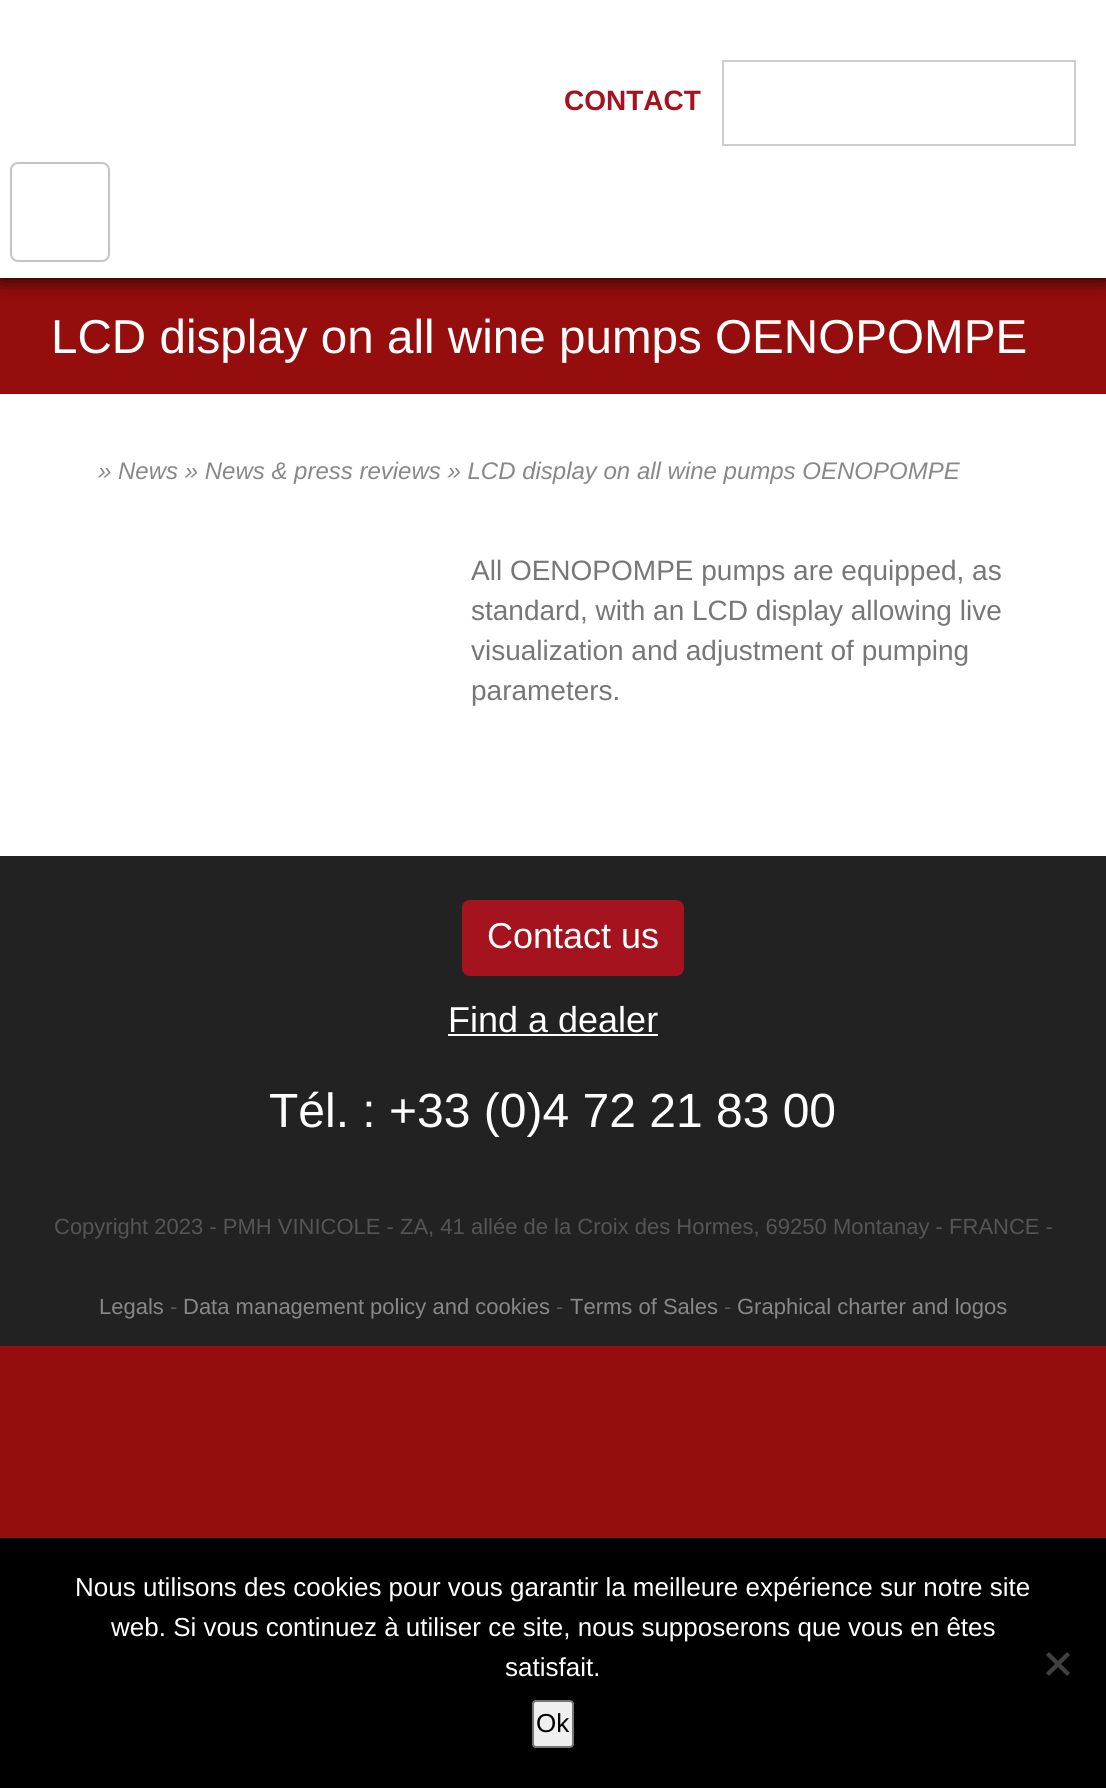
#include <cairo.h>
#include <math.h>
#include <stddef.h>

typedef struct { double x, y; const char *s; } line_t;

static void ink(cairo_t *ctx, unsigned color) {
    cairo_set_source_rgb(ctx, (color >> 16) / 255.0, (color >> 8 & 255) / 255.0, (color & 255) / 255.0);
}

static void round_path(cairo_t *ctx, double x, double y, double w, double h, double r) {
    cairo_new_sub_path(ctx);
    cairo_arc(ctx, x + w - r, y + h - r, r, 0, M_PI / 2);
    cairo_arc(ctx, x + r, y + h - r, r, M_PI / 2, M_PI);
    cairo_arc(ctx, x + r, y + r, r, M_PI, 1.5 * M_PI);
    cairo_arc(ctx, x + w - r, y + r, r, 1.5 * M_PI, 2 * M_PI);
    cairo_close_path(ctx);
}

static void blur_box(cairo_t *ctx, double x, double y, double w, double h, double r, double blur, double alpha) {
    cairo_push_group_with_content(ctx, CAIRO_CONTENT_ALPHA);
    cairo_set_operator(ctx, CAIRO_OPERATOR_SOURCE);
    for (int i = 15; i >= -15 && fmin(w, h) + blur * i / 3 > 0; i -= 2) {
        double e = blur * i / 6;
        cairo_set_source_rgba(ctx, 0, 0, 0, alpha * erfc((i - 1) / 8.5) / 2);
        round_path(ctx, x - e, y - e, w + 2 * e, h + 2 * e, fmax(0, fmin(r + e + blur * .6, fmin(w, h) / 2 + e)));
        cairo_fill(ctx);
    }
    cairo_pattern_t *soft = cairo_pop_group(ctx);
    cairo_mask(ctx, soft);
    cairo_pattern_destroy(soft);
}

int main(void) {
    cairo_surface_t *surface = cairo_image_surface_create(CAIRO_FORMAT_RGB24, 1106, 1788);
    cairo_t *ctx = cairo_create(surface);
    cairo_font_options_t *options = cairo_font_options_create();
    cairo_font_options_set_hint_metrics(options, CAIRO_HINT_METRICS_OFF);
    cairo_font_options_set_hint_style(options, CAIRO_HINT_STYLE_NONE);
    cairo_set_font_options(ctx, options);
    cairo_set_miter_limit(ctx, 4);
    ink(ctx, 0x960D0D);
    cairo_paint(ctx);
    ink(ctx, 0x000000);
    blur_box(ctx, 0, 0, 1106, 278, 0, 10, 1);
    ink(ctx, 0xFFFFFF);
    cairo_rectangle(ctx, 0, 0, 1106, 278);
    cairo_fill(ctx);
    cairo_select_font_face(ctx, "Liberation Sans", CAIRO_FONT_SLANT_NORMAL, CAIRO_FONT_WEIGHT_BOLD);
    cairo_set_font_size(ctx, 28);
    ink(ctx, 0xA5131E);
    cairo_move_to(ctx, 564, 110);
    cairo_show_text(ctx, "CONTACT");
    cairo_rectangle(ctx, 723, 61, 352, 84);
    ink(ctx, 0xCDCDCD);
    cairo_stroke(ctx);
    round_path(ctx, 11, 163, 98, 98, 7);
    ink(ctx, 0xC4C4C4);
    cairo_stroke(ctx);
    cairo_select_font_face(ctx, "Liberation Sans", CAIRO_FONT_SLANT_NORMAL, CAIRO_FONT_WEIGHT_NORMAL);
    cairo_set_font_size(ctx, 47.6);
    ink(ctx, 0xFFFFFF);
    cairo_move_to(ctx, 51, 353);
    cairo_show_text(ctx, "LCD display on all wine pumps OENOPOMPE");
    cairo_rectangle(ctx, 0, 394, 1106, 462);
    cairo_fill(ctx);
    cairo_select_font_face(ctx, "Liberation Sans", CAIRO_FONT_SLANT_ITALIC, CAIRO_FONT_WEIGHT_NORMAL);
    cairo_set_font_size(ctx, 24);
    ink(ctx, 0x888888);
    cairo_move_to(ctx, 98, 479);
    cairo_show_text(ctx, "» News » News & press reviews » LCD display on all wine pumps OENOPOMPE");
    cairo_select_font_face(ctx, "Liberation Sans", CAIRO_FONT_SLANT_NORMAL, CAIRO_FONT_WEIGHT_NORMAL);
    cairo_set_font_size(ctx, 28);
    ink(ctx, 0x777777);
    {
        static const line_t items[] = {
            {471, 580, "All OENOPOMPE pumps are equipped, as"},
            {471, 620, "standard, with an LCD display allowing live"},
            {471, 660, "visualization and adjustment of pumping"},
            {471, 700, "parameters."},
        };
        for (size_t i = 0; i < sizeof items / sizeof *items; i++) {
            cairo_move_to(ctx, items[i].x, items[i].y);
            cairo_show_text(ctx, items[i].s);
        }
    }
    ink(ctx, 0x222222);
    cairo_rectangle(ctx, 0, 856, 1106, 490);
    cairo_fill(ctx);
    ink(ctx, 0xA5131E);
    round_path(ctx, 462, 900, 222, 76, 8);
    cairo_fill(ctx);
    cairo_set_font_size(ctx, 36);
    ink(ctx, 0xFFFFFF);
    cairo_move_to(ctx, 487, 948);
    cairo_show_text(ctx, "Contact us");
    cairo_move_to(ctx, 448, 1032);
    cairo_show_text(ctx, "Find a dealer");
    cairo_rectangle(ctx, 448, 1034, 210, 2);
    cairo_fill(ctx);
    cairo_set_font_size(ctx, 48);
    cairo_move_to(ctx, 269, 1127);
    cairo_show_text(ctx, "Tél. : +33 (0)4 72 21 83 00");
    cairo_set_font_size(ctx, 22);
    ink(ctx, 0x555555);
    cairo_move_to(ctx, 54, 1234);
    cairo_show_text(ctx, "Copyright 2023 - PMH VINICOLE - ZA, 41 allée de la Croix des Hormes, 69250 Montanay - FRANCE -");
    ink(ctx, 0x888888);
    cairo_move_to(ctx, 99, 1314);
    cairo_show_text(ctx, "Legals");
    ink(ctx, 0x555555);
    cairo_move_to(ctx, 170, 1314);
    cairo_show_text(ctx, "-");
    ink(ctx, 0x888888);
    cairo_move_to(ctx, 183, 1314);
    cairo_show_text(ctx, "Data management policy and cookies");
    ink(ctx, 0x555555);
    cairo_move_to(ctx, 556, 1314);
    cairo_show_text(ctx, "-");
    ink(ctx, 0x888888);
    cairo_move_to(ctx, 570, 1314);
    cairo_show_text(ctx, "Terms of Sales");
    ink(ctx, 0x555555);
    cairo_move_to(ctx, 724, 1314);
    cairo_show_text(ctx, "-");
    ink(ctx, 0x888888);
    cairo_move_to(ctx, 737, 1314);
    cairo_show_text(ctx, "Graphical charter and logos");
    ink(ctx, 0x000000);
    cairo_rectangle(ctx, 0, 1538, 1106, 250);
    cairo_fill(ctx);
    cairo_set_font_size(ctx, 26);
    ink(ctx, 0xFFFFFF);
    {
        static const line_t items[] = {
            {75, 1596, "Nous utilisons des cookies pour vous garantir la meilleure expérience sur notre site"},
            {111, 1636, "web. Si vous continuez à utiliser ce site, nous supposerons que vous en êtes"},
            {505, 1676, "satisfait."},
        };
        for (size_t i = 0; i < sizeof items / sizeof *items; i++) {
            cairo_move_to(ctx, items[i].x, items[i].y);
            cairo_show_text(ctx, items[i].s);
        }
    }
    ink(ctx, 0x404040);
    cairo_new_path(ctx);
    cairo_move_to(ctx, 1067, 1652);
    cairo_line_to(ctx, 1070, 1655);
    cairo_line_to(ctx, 1049, 1676);
    cairo_line_to(ctx, 1046, 1673);
    cairo_close_path(ctx);
    cairo_fill(ctx);
    cairo_new_path(ctx);
    cairo_move_to(ctx, 1046, 1655);
    cairo_line_to(ctx, 1049, 1652);
    cairo_line_to(ctx, 1070, 1673);
    cairo_line_to(ctx, 1067, 1676);
    cairo_close_path(ctx);
    cairo_fill(ctx);
    ink(ctx, 0xEFEFEF);
    round_path(ctx, 533, 1701, 40, 46, 3);
    cairo_fill_preserve(ctx);
    ink(ctx, 0x767676);
    cairo_stroke(ctx);
    ink(ctx, 0x000000);
    cairo_move_to(ctx, 536, 1732);
    cairo_show_text(ctx, "Ok");
    cairo_surface_write_to_png(surface, "image.png");
    cairo_font_options_destroy(options);
    cairo_destroy(ctx);
    cairo_surface_destroy(surface);
    return 0;
}
